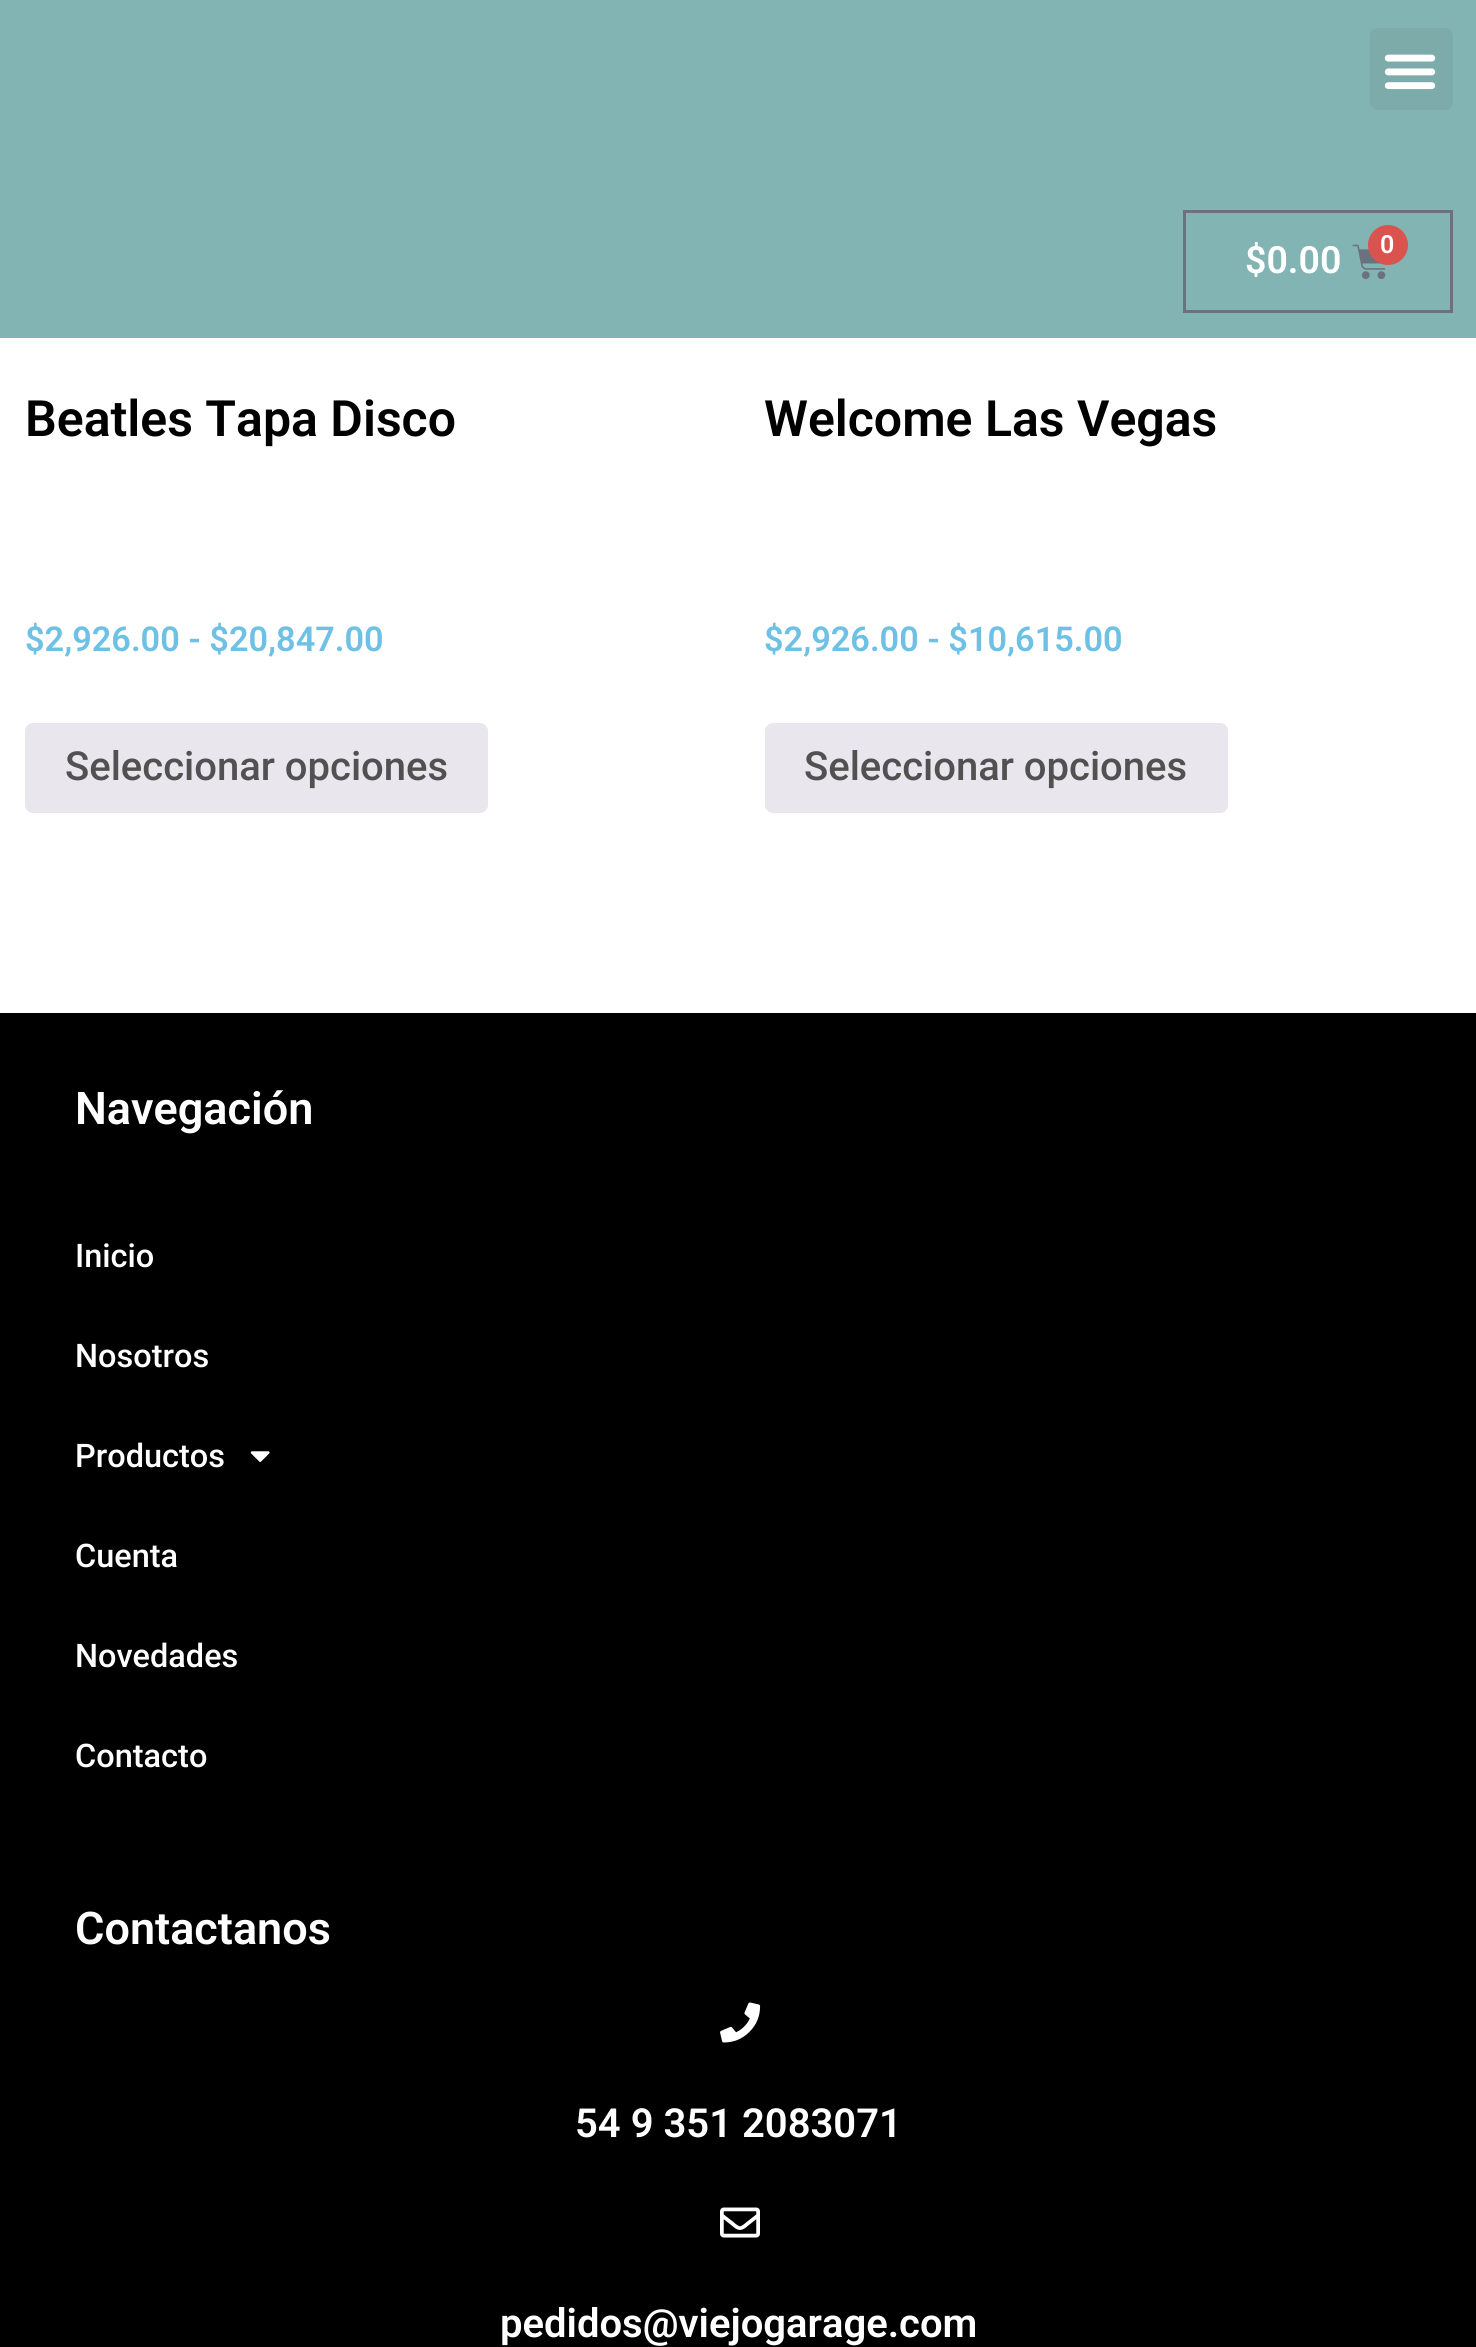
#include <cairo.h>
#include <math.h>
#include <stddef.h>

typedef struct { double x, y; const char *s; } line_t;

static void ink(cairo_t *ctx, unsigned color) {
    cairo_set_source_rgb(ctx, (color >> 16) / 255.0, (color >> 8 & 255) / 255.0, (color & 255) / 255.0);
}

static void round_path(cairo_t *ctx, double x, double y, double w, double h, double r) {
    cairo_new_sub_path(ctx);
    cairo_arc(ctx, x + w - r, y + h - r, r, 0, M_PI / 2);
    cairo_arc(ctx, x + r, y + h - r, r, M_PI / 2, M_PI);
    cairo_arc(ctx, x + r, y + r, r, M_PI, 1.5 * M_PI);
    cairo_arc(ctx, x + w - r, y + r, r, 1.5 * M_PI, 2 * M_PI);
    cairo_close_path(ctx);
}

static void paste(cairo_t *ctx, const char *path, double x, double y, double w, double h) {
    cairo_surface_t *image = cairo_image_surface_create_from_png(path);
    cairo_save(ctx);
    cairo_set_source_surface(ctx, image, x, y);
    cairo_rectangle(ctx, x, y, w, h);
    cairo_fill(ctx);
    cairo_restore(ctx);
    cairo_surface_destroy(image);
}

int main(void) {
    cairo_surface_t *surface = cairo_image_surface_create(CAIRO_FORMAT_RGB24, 1476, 2347);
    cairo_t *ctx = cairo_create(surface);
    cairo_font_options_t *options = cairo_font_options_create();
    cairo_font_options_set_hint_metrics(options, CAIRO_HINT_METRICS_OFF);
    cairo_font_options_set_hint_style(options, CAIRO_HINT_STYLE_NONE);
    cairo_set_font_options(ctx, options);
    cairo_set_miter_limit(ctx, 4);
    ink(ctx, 0xFFFFFF);
    cairo_paint(ctx);
    ink(ctx, 0x82B4B3);
    cairo_rectangle(ctx, 0, 0, 1476, 338);
    cairo_fill(ctx);
    ink(ctx, 0x7CABAA);
    round_path(ctx, 1370, 28, 83, 82, 8);
    cairo_fill(ctx);
    paste(ctx, "media/1.png", 1384, 54, 52, 36);
    cairo_rectangle(ctx, 1184.5, 211.5, 267, 100);
    ink(ctx, 0x69727D);
    cairo_set_line_width(ctx, 3);
    cairo_stroke(ctx);
    cairo_select_font_face(ctx, "Roboto SemiBold", CAIRO_FONT_SLANT_NORMAL, CAIRO_FONT_WEIGHT_NORMAL);
    cairo_set_font_size(ctx, 37.5);
    ink(ctx, 0xFFFFFF);
    cairo_move_to(ctx, 1245, 273);
    cairo_show_text(ctx, "$0.00");
    paste(ctx, "media/2.png", 1352, 244, 34, 35);
    ink(ctx, 0xD9534F);
    cairo_arc(ctx, 1388, 245, 20, 0, 2 * M_PI);
    cairo_fill(ctx);
    cairo_set_font_size(ctx, 25);
    ink(ctx, 0xFFFFFF);
    cairo_move_to(ctx, 1380, 253);
    cairo_show_text(ctx, "0");
    cairo_set_font_size(ctx, 50);
    ink(ctx, 0x000000);
    cairo_move_to(ctx, 25, 436);
    cairo_show_text(ctx, "Beatles Tapa Disco");
    cairo_set_font_size(ctx, 34.25);
    ink(ctx, 0x6EC1E4);
    cairo_move_to(ctx, 25, 651);
    cairo_show_text(ctx, "$2,926.00 - $20,847.00");
    ink(ctx, 0xE9E6ED);
    round_path(ctx, 25, 723, 463, 90, 8);
    cairo_fill(ctx);
    cairo_select_font_face(ctx, "Roboto Medium", CAIRO_FONT_SLANT_NORMAL, CAIRO_FONT_WEIGHT_NORMAL);
    cairo_set_font_size(ctx, 40);
    ink(ctx, 0x515151);
    cairo_move_to(ctx, 65, 780);
    cairo_show_text(ctx, "Seleccionar opciones");
    cairo_select_font_face(ctx, "Roboto SemiBold", CAIRO_FONT_SLANT_NORMAL, CAIRO_FONT_WEIGHT_NORMAL);
    cairo_set_font_size(ctx, 50);
    ink(ctx, 0x000000);
    cairo_move_to(ctx, 764, 436);
    cairo_show_text(ctx, "Welcome Las Vegas");
    cairo_set_font_size(ctx, 34.25);
    ink(ctx, 0x6EC1E4);
    cairo_move_to(ctx, 764, 651);
    cairo_show_text(ctx, "$2,926.00 - $10,615.00");
    ink(ctx, 0xE9E6ED);
    round_path(ctx, 765, 723, 463, 90, 8);
    cairo_fill(ctx);
    cairo_select_font_face(ctx, "Roboto Medium", CAIRO_FONT_SLANT_NORMAL, CAIRO_FONT_WEIGHT_NORMAL);
    cairo_set_font_size(ctx, 40);
    ink(ctx, 0x515151);
    cairo_move_to(ctx, 804, 780);
    cairo_show_text(ctx, "Seleccionar opciones");
    ink(ctx, 0x000000);
    cairo_rectangle(ctx, 0, 1013, 1476, 1334);
    cairo_fill(ctx);
    cairo_select_font_face(ctx, "Roboto SemiBold", CAIRO_FONT_SLANT_NORMAL, CAIRO_FONT_WEIGHT_NORMAL);
    cairo_set_font_size(ctx, 45);
    ink(ctx, 0xFFFFFF);
    cairo_move_to(ctx, 75, 1124);
    cairo_show_text(ctx, "Navegación");
    cairo_select_font_face(ctx, "Roboto Medium", CAIRO_FONT_SLANT_NORMAL, CAIRO_FONT_WEIGHT_NORMAL);
    cairo_set_font_size(ctx, 32.5);
    {
        static const line_t items[] = {
            {75, 1267, "Inicio"},
            {75, 1367, "Nosotros"},
            {75, 1467, "Productos"},
        };
        for (size_t i = 0; i < sizeof items / sizeof *items; i++) {
            cairo_move_to(ctx, items[i].x, items[i].y);
            cairo_show_text(ctx, items[i].s);
        }
    }
    paste(ctx, "media/3.png", 250, 1451, 20, 11);
    {
        static const line_t items[] = {
            {75, 1567, "Cuenta"},
            {75, 1667, "Novedades"},
            {75, 1767, "Contacto"},
        };
        for (size_t i = 0; i < sizeof items / sizeof *items; i++) {
            cairo_move_to(ctx, items[i].x, items[i].y);
            cairo_show_text(ctx, items[i].s);
        }
    }
    cairo_select_font_face(ctx, "Roboto SemiBold", CAIRO_FONT_SLANT_NORMAL, CAIRO_FONT_WEIGHT_NORMAL);
    cairo_set_font_size(ctx, 45);
    cairo_move_to(ctx, 75, 1944);
    cairo_show_text(ctx, "Contactanos");
    paste(ctx, "media/4.png", 720, 2002, 41, 41);
    cairo_set_font_size(ctx, 40);
    cairo_move_to(ctx, 575, 2137);
    cairo_show_text(ctx, "54 9 351 2083071");
    paste(ctx, "media/5.png", 720, 2207, 40, 31);
    cairo_move_to(ctx, 500, 2337);
    cairo_show_text(ctx, "pedidos@viejogarage.com");
    cairo_surface_write_to_png(surface, "image.png");
    cairo_font_options_destroy(options);
    cairo_destroy(ctx);
    cairo_surface_destroy(surface);
    return 0;
}
